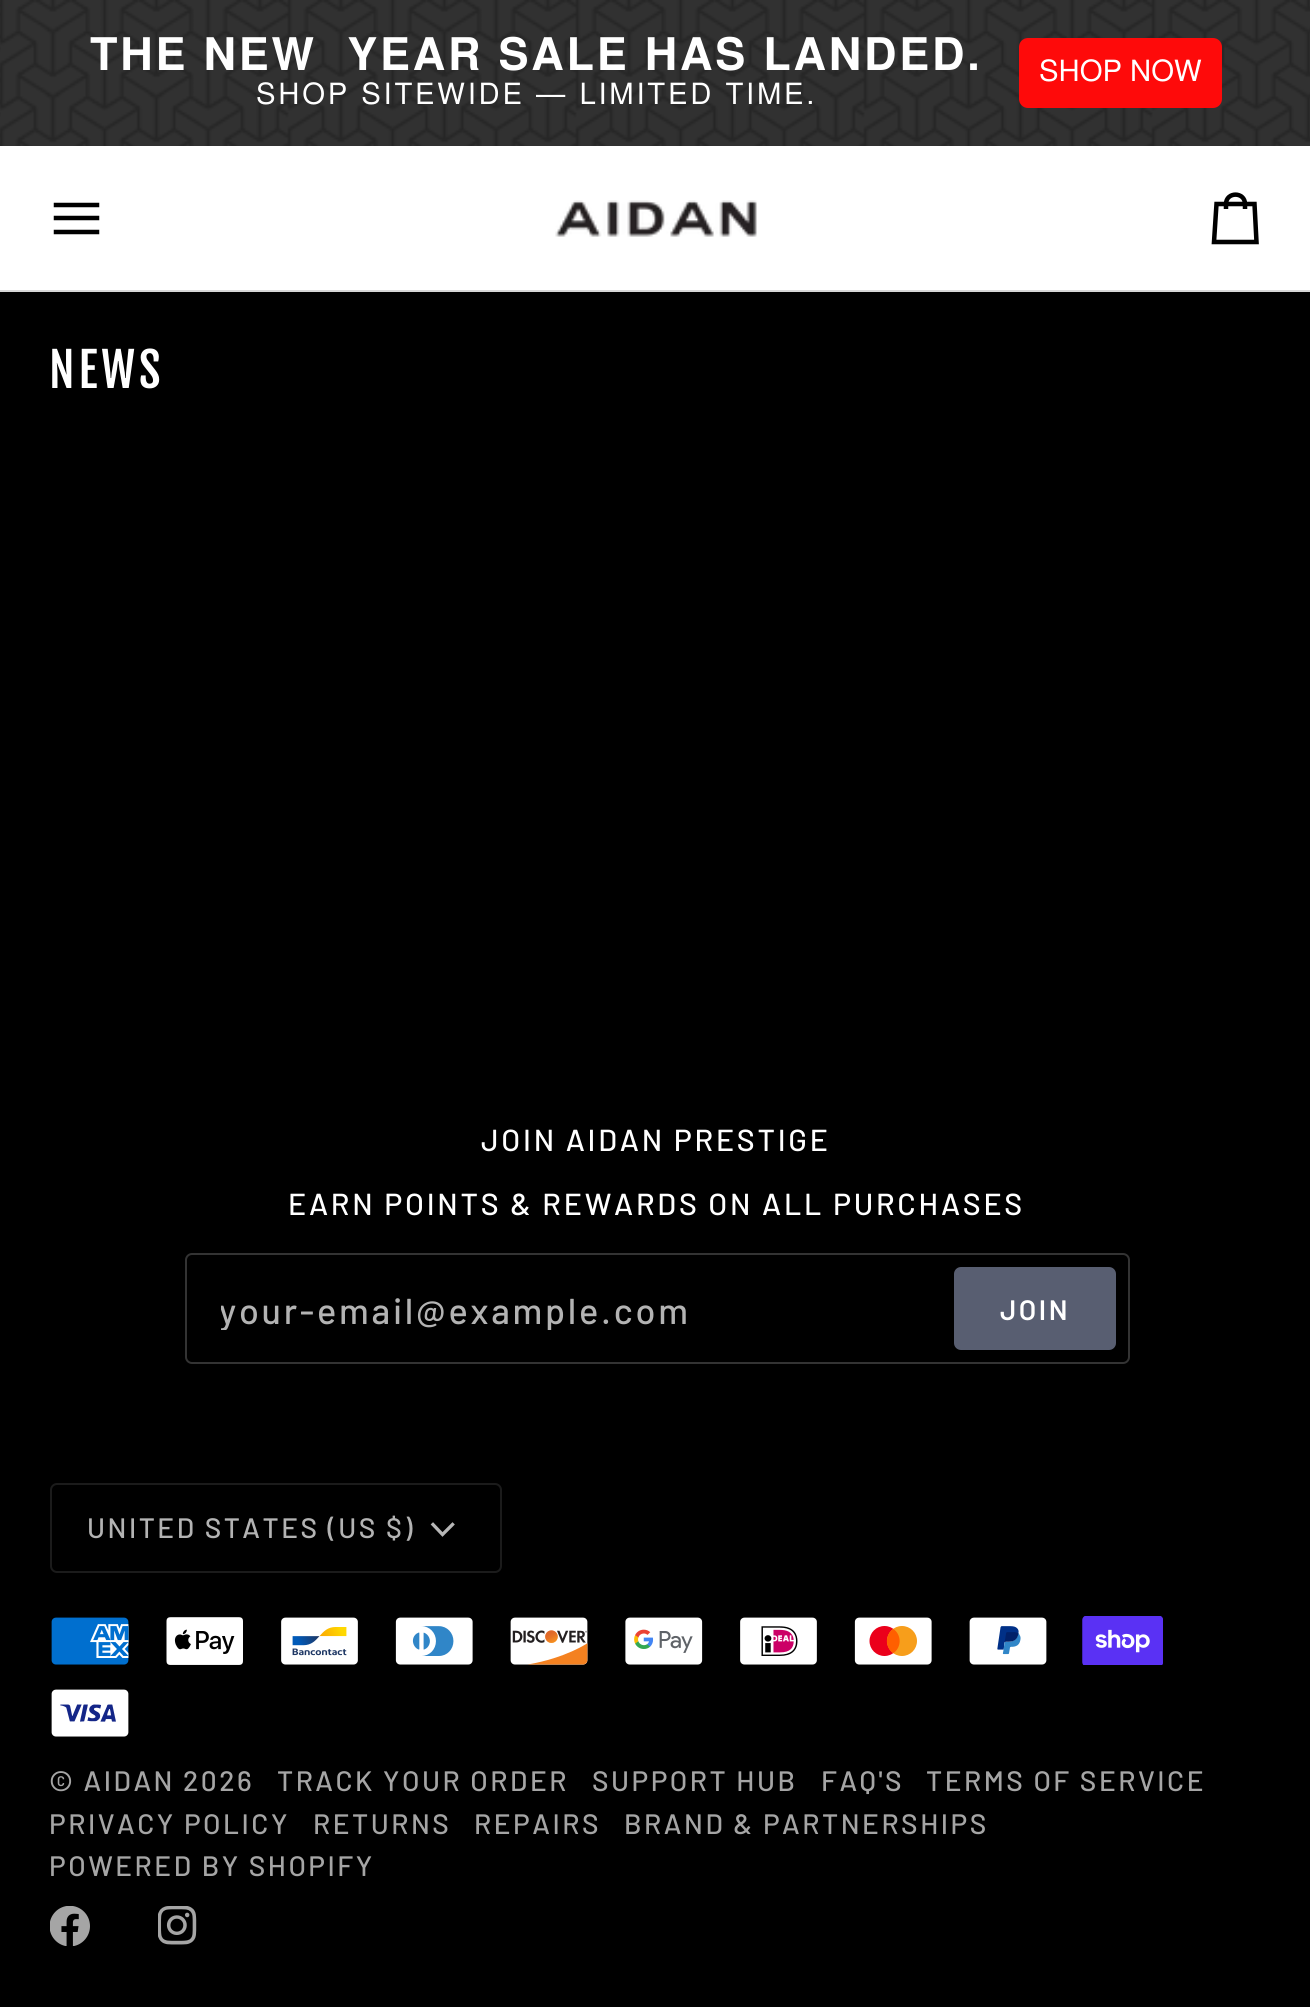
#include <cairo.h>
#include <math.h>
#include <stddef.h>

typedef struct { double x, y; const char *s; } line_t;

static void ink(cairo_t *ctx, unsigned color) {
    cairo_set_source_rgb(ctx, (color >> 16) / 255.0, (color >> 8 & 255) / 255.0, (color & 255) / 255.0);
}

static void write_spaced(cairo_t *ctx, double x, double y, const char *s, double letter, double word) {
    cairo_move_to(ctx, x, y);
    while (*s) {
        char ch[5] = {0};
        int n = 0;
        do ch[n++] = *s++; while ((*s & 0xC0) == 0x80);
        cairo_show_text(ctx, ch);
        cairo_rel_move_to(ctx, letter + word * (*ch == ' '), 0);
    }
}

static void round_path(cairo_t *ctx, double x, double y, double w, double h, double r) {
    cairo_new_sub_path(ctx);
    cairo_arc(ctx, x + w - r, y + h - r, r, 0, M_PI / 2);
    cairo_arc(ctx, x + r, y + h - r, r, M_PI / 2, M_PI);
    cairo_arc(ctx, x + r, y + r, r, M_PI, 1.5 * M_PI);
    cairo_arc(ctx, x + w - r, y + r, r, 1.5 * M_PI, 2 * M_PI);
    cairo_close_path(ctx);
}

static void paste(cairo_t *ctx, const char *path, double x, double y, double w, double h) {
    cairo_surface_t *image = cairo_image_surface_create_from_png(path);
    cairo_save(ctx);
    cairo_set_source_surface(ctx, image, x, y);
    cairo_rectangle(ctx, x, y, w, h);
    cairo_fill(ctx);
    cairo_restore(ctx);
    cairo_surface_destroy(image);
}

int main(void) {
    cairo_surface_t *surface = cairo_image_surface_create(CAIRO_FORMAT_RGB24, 1310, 2007);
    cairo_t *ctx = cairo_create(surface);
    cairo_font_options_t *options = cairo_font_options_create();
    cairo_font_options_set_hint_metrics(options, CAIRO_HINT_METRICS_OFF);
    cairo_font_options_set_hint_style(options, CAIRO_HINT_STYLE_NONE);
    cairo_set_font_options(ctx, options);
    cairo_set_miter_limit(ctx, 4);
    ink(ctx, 0x000000);
    cairo_paint(ctx);
    paste(ctx, "media/1.png", 0, 0, 1310, 146);
    cairo_select_font_face(ctx, "TeX Gyre Heros", CAIRO_FONT_SLANT_NORMAL, CAIRO_FONT_WEIGHT_BOLD);
    cairo_set_font_size(ctx, 45);
    ink(ctx, 0xFFFFFF);
    write_spaced(ctx, 90, 70, "THE NEW  YEAR SALE HAS LANDED.", 2.75, 0);
    cairo_select_font_face(ctx, "TeX Gyre Heros", CAIRO_FONT_SLANT_NORMAL, CAIRO_FONT_WEIGHT_NORMAL);
    cairo_set_font_size(ctx, 29.25);
    write_spaced(ctx, 256, 104, "SHOP SITEWIDE — LIMITED TIME.", 2.75, 0.5);
    ink(ctx, 0xFE0A0A);
    round_path(ctx, 1020, 39, 201, 68, 8);
    cairo_fill_preserve(ctx);
    cairo_stroke(ctx);
    ink(ctx, 0xFFFFFF);
    cairo_move_to(ctx, 1039, 81);
    cairo_show_text(ctx, "SHOP NOW");
    cairo_rectangle(ctx, 0, 146, 1310, 144);
    cairo_fill(ctx);
    ink(ctx, 0xD7D7D7);
    cairo_rectangle(ctx, 0, 290, 1310, 2);
    cairo_fill(ctx);
    cairo_new_path(ctx);
    cairo_move_to(ctx, 97, 205);
    cairo_line_to(ctx, 56, 205);
    cairo_move_to(ctx, 97, 218);
    cairo_line_to(ctx, 56, 218);
    cairo_move_to(ctx, 97, 232);
    cairo_line_to(ctx, 56, 232);
    ink(ctx, 0x000000);
    cairo_set_line_width(ctx, 4.5);
    cairo_set_line_cap(ctx, CAIRO_LINE_CAP_SQUARE);
    cairo_stroke(ctx);
    paste(ctx, "media/2.png", 555, 200, 202, 37);
    cairo_new_path(ctx);
    cairo_move_to(ctx, 1245, 209);
    cairo_line_to(ctx, 1245, 204);
    cairo_line_to(ctx, 1254.5, 204);
    cairo_line_to(ctx, 1256.5, 242);
    cairo_line_to(ctx, 1214, 242);
    cairo_line_to(ctx, 1216.5, 204);
    cairo_line_to(ctx, 1226, 204);
    cairo_curve_to(ctx, 1226, 191.5, 1245, 191.5, 1245, 204);
    cairo_line_to(ctx, 1226, 204);
    cairo_line_to(ctx, 1226, 209);
    cairo_set_line_cap(ctx, CAIRO_LINE_CAP_BUTT);
    cairo_stroke(ctx);
    cairo_select_font_face(ctx, "Fjalla One", CAIRO_FONT_SLANT_NORMAL, CAIRO_FONT_WEIGHT_NORMAL);
    cairo_set_font_size(ctx, 47);
    ink(ctx, 0xFFFFFF);
    write_spaced(ctx, 49, 388, "NEWS", 4, 0);
    cairo_select_font_face(ctx, "Barlow Medium", CAIRO_FONT_SLANT_NORMAL, CAIRO_FONT_WEIGHT_NORMAL);
    cairo_set_font_size(ctx, 30.4);
    write_spaced(ctx, 481, 1151, "JOIN AIDAN PRESTIGE", 2.75, 0);
    write_spaced(ctx, 288, 1215, "EARN POINTS & REWARDS ON ALL PURCHASES", 2.75, 0);
    round_path(ctx, 186, 1254, 943, 109, 6);
    ink(ctx, 0x333333);
    cairo_set_line_width(ctx, 2);
    cairo_stroke(ctx);
    cairo_save(ctx);
    cairo_rectangle(ctx, 221, 1287, 711, 43);
    cairo_clip(ctx);
    cairo_set_font_size(ctx, 36);
    ink(ctx, 0xB3B3B3);
    write_spaced(ctx, 219, 1324, "your-email@example.com", 2.75, 0);
    cairo_restore(ctx);
    ink(ctx, 0x585E71);
    round_path(ctx, 954, 1267, 162, 83, 7);
    cairo_fill(ctx);
    cairo_select_font_face(ctx, "Barlow SemiBold", CAIRO_FONT_SLANT_NORMAL, CAIRO_FONT_WEIGHT_NORMAL);
    cairo_set_font_size(ctx, 28.1);
    ink(ctx, 0xFFFFFF);
    write_spaced(ctx, 1000, 1320, "JOIN", 2.5, 0);
    round_path(ctx, 51, 1484, 450, 88, 6);
    ink(ctx, 0x1B1B1B);
    cairo_stroke(ctx);
    cairo_select_font_face(ctx, "Barlow Medium", CAIRO_FONT_SLANT_NORMAL, CAIRO_FONT_WEIGHT_NORMAL);
    ink(ctx, 0xB3B3B3);
    write_spaced(ctx, 87, 1538, "UNITED STATES (US $)", 2.5, 0);
    cairo_new_path(ctx);
    cairo_move_to(ctx, 433, 1524.5);
    cairo_line_to(ctx, 442.5, 1534.5);
    cairo_line_to(ctx, 452.5, 1524.5);
    ink(ctx, 0xB7B7B7);
    cairo_set_line_width(ctx, 3.3);
    cairo_set_line_cap(ctx, CAIRO_LINE_CAP_SQUARE);
    cairo_stroke(ctx);
    paste(ctx, "media/3.png", 51, 1617, 78, 48);
    paste(ctx, "media/4.png", 166, 1617, 77, 48);
    paste(ctx, "media/5.png", 281, 1617, 77, 48);
    paste(ctx, "media/6.png", 395, 1617, 78, 48);
    paste(ctx, "media/7.png", 510, 1617, 78, 48);
    paste(ctx, "media/8.png", 625, 1617, 78, 48);
    paste(ctx, "media/9.png", 740, 1617, 77, 48);
    paste(ctx, "media/10.png", 854, 1617, 78, 48);
    paste(ctx, "media/11.png", 969, 1617, 78, 48);
    paste(ctx, "media/12.png", 1082, 1616, 81, 49);
    paste(ctx, "media/13.png", 51, 1689, 78, 48);
    ink(ctx, 0xA5A5A5);
    {
        static const line_t items[] = {
            {49, 1791, "© AIDAN"},
            {183, 1791, "2026"},
            {277, 1791, "TRACK YOUR ORDER"},
            {592, 1791, "SUPPORT HUB"},
            {821, 1791, "FAQ'S"},
            {926, 1791, "TERMS OF SERVICE"},
            {49, 1834, "PRIVACY POLICY"},
            {313, 1834, "RETURNS"},
            {474, 1834, "REPAIRS"},
            {624, 1834, "BRAND & PARTNERSHIPS"},
            {49, 1876, "POWERED BY SHOPIFY"},
        };
        for (size_t i = 0; i < sizeof items / sizeof *items; i++) {
            write_spaced(ctx, items[i].x, items[i].y, items[i].s, 2.5, 0);
        }
    }
    paste(ctx, "media/14.png", 50, 1906, 40, 40);
    paste(ctx, "media/15.png", 158, 1906, 39, 39);
    cairo_surface_write_to_png(surface, "image.png");
    cairo_font_options_destroy(options);
    cairo_destroy(ctx);
    cairo_surface_destroy(surface);
    return 0;
}
